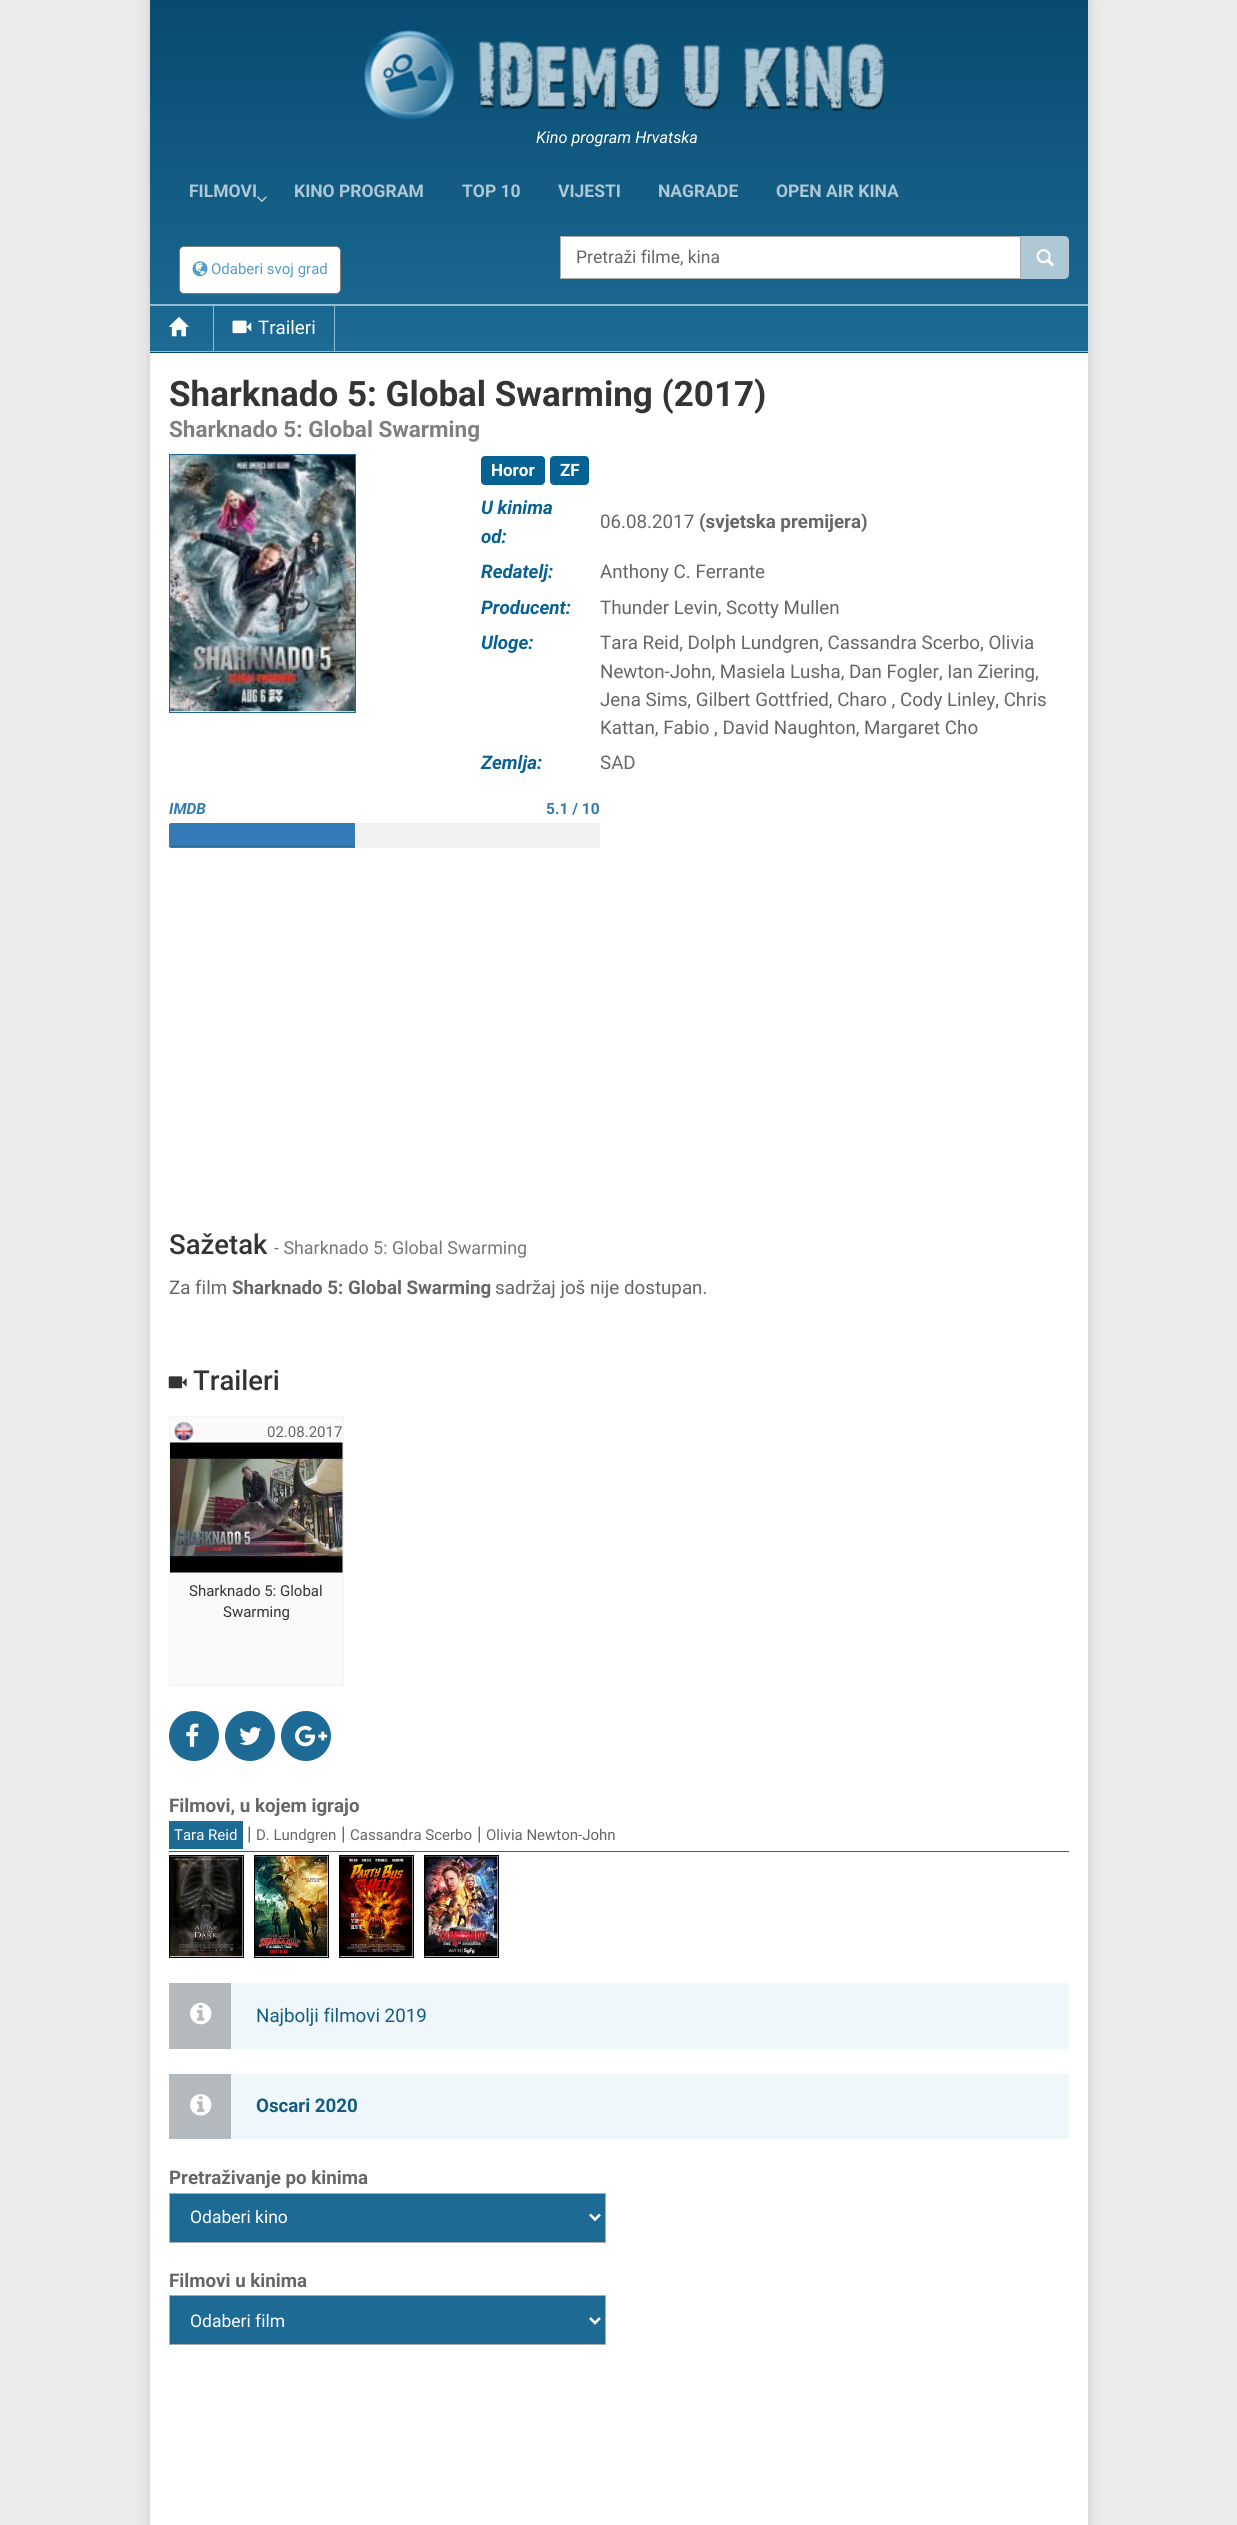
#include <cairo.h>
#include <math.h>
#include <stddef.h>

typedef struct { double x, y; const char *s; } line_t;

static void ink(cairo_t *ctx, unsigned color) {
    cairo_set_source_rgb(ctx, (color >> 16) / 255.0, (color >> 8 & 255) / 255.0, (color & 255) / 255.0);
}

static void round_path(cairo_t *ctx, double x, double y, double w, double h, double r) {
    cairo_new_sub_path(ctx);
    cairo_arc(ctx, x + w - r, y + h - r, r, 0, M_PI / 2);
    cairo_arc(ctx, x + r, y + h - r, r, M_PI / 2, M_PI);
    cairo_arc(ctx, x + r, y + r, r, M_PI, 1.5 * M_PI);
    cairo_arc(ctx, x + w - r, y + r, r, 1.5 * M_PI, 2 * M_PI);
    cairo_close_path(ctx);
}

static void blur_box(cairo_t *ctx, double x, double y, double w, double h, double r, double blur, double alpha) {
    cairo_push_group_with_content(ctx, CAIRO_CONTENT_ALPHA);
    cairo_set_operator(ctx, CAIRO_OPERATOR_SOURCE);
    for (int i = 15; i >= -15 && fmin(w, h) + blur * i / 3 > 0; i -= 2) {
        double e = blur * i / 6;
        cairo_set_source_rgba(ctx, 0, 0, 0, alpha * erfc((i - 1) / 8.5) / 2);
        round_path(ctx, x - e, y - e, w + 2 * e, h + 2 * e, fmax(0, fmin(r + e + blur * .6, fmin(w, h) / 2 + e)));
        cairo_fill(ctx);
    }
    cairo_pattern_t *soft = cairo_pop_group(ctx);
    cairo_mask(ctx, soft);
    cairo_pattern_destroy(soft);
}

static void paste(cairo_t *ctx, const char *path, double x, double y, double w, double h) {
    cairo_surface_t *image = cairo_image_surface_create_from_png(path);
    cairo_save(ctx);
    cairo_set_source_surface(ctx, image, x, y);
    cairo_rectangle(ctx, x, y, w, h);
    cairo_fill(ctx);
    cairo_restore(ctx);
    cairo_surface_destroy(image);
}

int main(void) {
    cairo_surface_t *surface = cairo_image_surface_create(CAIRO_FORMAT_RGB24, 1237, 2525);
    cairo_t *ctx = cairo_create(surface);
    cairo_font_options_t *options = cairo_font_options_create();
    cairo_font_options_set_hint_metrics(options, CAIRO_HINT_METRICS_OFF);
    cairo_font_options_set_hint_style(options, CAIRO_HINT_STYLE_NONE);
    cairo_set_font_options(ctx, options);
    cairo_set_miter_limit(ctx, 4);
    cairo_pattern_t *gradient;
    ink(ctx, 0xEBEBEB);
    cairo_paint(ctx);
    ink(ctx, 0xCACACA);
    blur_box(ctx, 150, 0, 938, 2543, 0, 6, 1);
    ink(ctx, 0xFFFFFF);
    cairo_rectangle(ctx, 150, 353, 938, 2172);
    cairo_fill(ctx);
    gradient = cairo_pattern_create_linear(619, 0, 619, 351);
    cairo_pattern_add_color_stop_rgba(gradient, 0, 0.027, 0.294, 0.435, 1);
    cairo_pattern_add_color_stop_rgba(gradient, 1, 0.114, 0.42, 0.584, 1);
    cairo_set_source(ctx, gradient);
    cairo_pattern_destroy(gradient);
    cairo_rectangle(ctx, 150, 0, 938, 351);
    cairo_fill(ctx);
    gradient = cairo_pattern_create_linear(619, 351, 619, 703);
    cairo_pattern_add_color_stop_rgba(gradient, 0, 0.027, 0.294, 0.435, 1);
    cairo_pattern_add_color_stop_rgba(gradient, 1, 0.114, 0.42, 0.584, 1);
    cairo_set_source(ctx, gradient);
    cairo_pattern_destroy(gradient);
    cairo_rectangle(ctx, 150, 352, 938, 1);
    cairo_fill(ctx);
    ink(ctx, 0x94BCD1);
    cairo_rectangle(ctx, 150, 351, 938, 1);
    cairo_fill(ctx);
    paste(ctx, "media/1.png", 363, 30, 521, 90);
    cairo_select_font_face(ctx, "Roboto", CAIRO_FONT_SLANT_ITALIC, CAIRO_FONT_WEIGHT_NORMAL);
    cairo_set_font_size(ctx, 16.25);
    ink(ctx, 0xFFFFFF);
    cairo_move_to(ctx, 536, 143);
    cairo_show_text(ctx, "Kino program Hrvatska");
    cairo_select_font_face(ctx, "Roboto", CAIRO_FONT_SLANT_NORMAL, CAIRO_FONT_WEIGHT_BOLD);
    cairo_set_font_size(ctx, 17.5);
    ink(ctx, 0xAEC8D6);
    cairo_move_to(ctx, 189, 197);
    cairo_show_text(ctx, "FILMOVI");
    paste(ctx, "media/2.png", 257, 196, 10, 6);
    {
        static const line_t items[] = {
            {294, 197, "KINO PROGRAM"},
            {462, 197, "TOP 10"},
            {558, 197, "VIJESTI"},
            {658, 197, "NAGRADE"},
            {776, 197, "OPEN AIR KINA"},
        };
        for (size_t i = 0; i < sizeof items / sizeof *items; i++) {
            cairo_move_to(ctx, items[i].x, items[i].y);
            cairo_show_text(ctx, items[i].s);
        }
    }
    ink(ctx, 0xFFFFFF);
    cairo_rectangle(ctx, 560.5, 236.5, 460, 42);
    cairo_fill_preserve(ctx);
    ink(ctx, 0xACACAC);
    cairo_set_line_width(ctx, 1);
    cairo_stroke(ctx);
    cairo_select_font_face(ctx, "Roboto", CAIRO_FONT_SLANT_NORMAL, CAIRO_FONT_WEIGHT_NORMAL);
    ink(ctx, 0x666666);
    cairo_move_to(ctx, 576, 263);
    cairo_show_text(ctx, "Pretraži filme, kina");
    ink(ctx, 0xAEC8D6);
    cairo_new_path(ctx);
    cairo_move_to(ctx, 1021, 236);
    cairo_line_to(ctx, 1064, 236);
    cairo_curve_to(ctx, 1067, 236, 1069, 238, 1069, 241);
    cairo_line_to(ctx, 1069, 274);
    cairo_curve_to(ctx, 1069, 277, 1067, 279, 1064, 279);
    cairo_line_to(ctx, 1021, 279);
    cairo_close_path(ctx);
    cairo_fill(ctx);
    paste(ctx, "media/3.png", 1036, 249, 18, 18);
    ink(ctx, 0xFFFFFF);
    round_path(ctx, 179.5, 246.5, 161, 47, 4.5);
    cairo_fill_preserve(ctx);
    ink(ctx, 0x808080);
    cairo_stroke(ctx);
    paste(ctx, "media/4.png", 192, 261, 16, 16);
    cairo_set_font_size(ctx, 15);
    ink(ctx, 0x559BCC);
    cairo_move_to(ctx, 211, 274);
    cairo_show_text(ctx, "Odaberi svoj grad");
    ink(ctx, 0x94BCD1);
    cairo_rectangle(ctx, 150, 304, 938, 2);
    cairo_fill(ctx);
    cairo_rectangle(ctx, 213, 306, 1, 45);
    cairo_fill(ctx);
    paste(ctx, "media/5.png", 168, 316, 21, 21);
    cairo_rectangle(ctx, 334, 306, 1, 45);
    cairo_fill(ctx);
    paste(ctx, "media/6.png", 232, 320, 20, 14);
    cairo_set_font_size(ctx, 18.75);
    ink(ctx, 0xFFFFFF);
    cairo_move_to(ctx, 258, 334);
    cairo_show_text(ctx, "Traileri");
    cairo_select_font_face(ctx, "Roboto", CAIRO_FONT_SLANT_NORMAL, CAIRO_FONT_WEIGHT_BOLD);
    cairo_set_font_size(ctx, 35);
    ink(ctx, 0x343434);
    cairo_move_to(ctx, 169, 406);
    cairo_show_text(ctx, "Sharknado 5: Global Swarming (2017)");
    cairo_set_font_size(ctx, 22.5);
    ink(ctx, 0x808080);
    cairo_move_to(ctx, 169, 437);
    cairo_show_text(ctx, "Sharknado 5: Global Swarming");
    cairo_rectangle(ctx, 169.5, 454.5, 186, 258);
    ink(ctx, 0x1D6B95);
    cairo_stroke(ctx);
    paste(ctx, "media/7.png", 170, 455, 185, 257);
    ink(ctx, 0x076294);
    round_path(ctx, 481, 456, 64, 29, 4);
    cairo_fill(ctx);
    cairo_set_font_size(ctx, 17);
    ink(ctx, 0xFFFFFF);
    cairo_move_to(ctx, 491, 476);
    cairo_show_text(ctx, "Horor");
    ink(ctx, 0x076294);
    round_path(ctx, 550, 456, 39, 29, 4);
    cairo_fill(ctx);
    ink(ctx, 0xFFFFFF);
    cairo_move_to(ctx, 560, 476);
    cairo_show_text(ctx, "ZF");
    cairo_select_font_face(ctx, "Roboto", CAIRO_FONT_SLANT_ITALIC, CAIRO_FONT_WEIGHT_BOLD);
    cairo_set_font_size(ctx, 18.75);
    ink(ctx, 0x076294);
    cairo_move_to(ctx, 481, 514);
    cairo_show_text(ctx, "U kinima");
    cairo_move_to(ctx, 481, 543);
    cairo_show_text(ctx, "od:");
    cairo_select_font_face(ctx, "Roboto", CAIRO_FONT_SLANT_NORMAL, CAIRO_FONT_WEIGHT_NORMAL);
    ink(ctx, 0x666666);
    cairo_move_to(ctx, 600, 528);
    cairo_show_text(ctx, "06.08.2017");
    cairo_select_font_face(ctx, "Roboto", CAIRO_FONT_SLANT_NORMAL, CAIRO_FONT_WEIGHT_BOLD);
    cairo_move_to(ctx, 699, 528);
    cairo_show_text(ctx, "(svjetska premijera)");
    cairo_select_font_face(ctx, "Roboto", CAIRO_FONT_SLANT_ITALIC, CAIRO_FONT_WEIGHT_BOLD);
    ink(ctx, 0x076294);
    cairo_move_to(ctx, 481, 578);
    cairo_show_text(ctx, "Redatelj:");
    cairo_select_font_face(ctx, "Roboto", CAIRO_FONT_SLANT_NORMAL, CAIRO_FONT_WEIGHT_NORMAL);
    ink(ctx, 0x666666);
    cairo_move_to(ctx, 600, 578);
    cairo_show_text(ctx, "Anthony C. Ferrante");
    cairo_select_font_face(ctx, "Roboto", CAIRO_FONT_SLANT_ITALIC, CAIRO_FONT_WEIGHT_BOLD);
    ink(ctx, 0x076294);
    cairo_move_to(ctx, 481, 614);
    cairo_show_text(ctx, "Producent:");
    cairo_select_font_face(ctx, "Roboto", CAIRO_FONT_SLANT_NORMAL, CAIRO_FONT_WEIGHT_NORMAL);
    ink(ctx, 0x666666);
    cairo_move_to(ctx, 600, 614);
    cairo_show_text(ctx, "Thunder Levin, Scotty Mullen");
    cairo_select_font_face(ctx, "Roboto", CAIRO_FONT_SLANT_ITALIC, CAIRO_FONT_WEIGHT_BOLD);
    ink(ctx, 0x076294);
    cairo_move_to(ctx, 481, 649);
    cairo_show_text(ctx, "Uloge:");
    cairo_select_font_face(ctx, "Roboto", CAIRO_FONT_SLANT_NORMAL, CAIRO_FONT_WEIGHT_NORMAL);
    ink(ctx, 0x666666);
    {
        static const line_t items[] = {
            {600, 649, "Tara Reid, Dolph Lundgren, Cassandra Scerbo, Olivia"},
            {600, 678, "Newton-John, Masiela Lusha, Dan Fogler, Ian Ziering,"},
            {600, 706, "Jena Sims, Gilbert Gottfried, Charo , Cody Linley, Chris"},
            {600, 734, "Kattan, Fabio , David Naughton, Margaret Cho"},
        };
        for (size_t i = 0; i < sizeof items / sizeof *items; i++) {
            cairo_move_to(ctx, items[i].x, items[i].y);
            cairo_show_text(ctx, items[i].s);
        }
    }
    cairo_select_font_face(ctx, "Roboto", CAIRO_FONT_SLANT_ITALIC, CAIRO_FONT_WEIGHT_BOLD);
    ink(ctx, 0x076294);
    cairo_move_to(ctx, 481, 769);
    cairo_show_text(ctx, "Zemlja:");
    cairo_select_font_face(ctx, "Roboto", CAIRO_FONT_SLANT_NORMAL, CAIRO_FONT_WEIGHT_NORMAL);
    ink(ctx, 0x666666);
    cairo_move_to(ctx, 600, 769);
    cairo_show_text(ctx, "SAD");
    cairo_select_font_face(ctx, "Roboto", CAIRO_FONT_SLANT_ITALIC, CAIRO_FONT_WEIGHT_BOLD);
    cairo_set_font_size(ctx, 15.5);
    ink(ctx, 0x337AB7);
    cairo_move_to(ctx, 169, 814);
    cairo_show_text(ctx, "IMDB");
    cairo_select_font_face(ctx, "Roboto", CAIRO_FONT_SLANT_NORMAL, CAIRO_FONT_WEIGHT_BOLD);
    cairo_move_to(ctx, 546, 814);
    cairo_show_text(ctx, "5.1 / 10");
    ink(ctx, 0xF1F1F1);
    round_path(ctx, 169, 823, 431, 25, 2.5);
    cairo_fill(ctx);
    ink(ctx, 0x337AB7);
    cairo_new_path(ctx);
    cairo_move_to(ctx, 171.5, 823);
    cairo_line_to(ctx, 355, 823);
    cairo_line_to(ctx, 355, 848);
    cairo_line_to(ctx, 171.5, 848);
    cairo_curve_to(ctx, 170, 848, 169, 847, 169, 845.5);
    cairo_line_to(ctx, 169, 825.5);
    cairo_curve_to(ctx, 169, 824, 170, 823, 171.5, 823);
    cairo_close_path(ctx);
    cairo_fill(ctx);
    cairo_set_source_rgba(ctx, 0, 0, 0, 0.15);
    cairo_rectangle(ctx, 169, 846, 186, 1);
    cairo_fill(ctx);
    cairo_select_font_face(ctx, "Roboto Medium", CAIRO_FONT_SLANT_NORMAL, CAIRO_FONT_WEIGHT_NORMAL);
    cairo_set_font_size(ctx, 27.5);
    ink(ctx, 0x343434);
    cairo_move_to(ctx, 169, 1254);
    cairo_show_text(ctx, "Sažetak");
    cairo_select_font_face(ctx, "Roboto", CAIRO_FONT_SLANT_NORMAL, CAIRO_FONT_WEIGHT_NORMAL);
    cairo_set_font_size(ctx, 17.9);
    ink(ctx, 0x777777);
    cairo_move_to(ctx, 274, 1254);
    cairo_show_text(ctx, "- Sharknado 5: Global Swarming");
    cairo_set_font_size(ctx, 18.75);
    ink(ctx, 0x666666);
    cairo_move_to(ctx, 169, 1294);
    cairo_show_text(ctx, "Za film");
    cairo_select_font_face(ctx, "Roboto", CAIRO_FONT_SLANT_NORMAL, CAIRO_FONT_WEIGHT_BOLD);
    cairo_move_to(ctx, 232, 1294);
    cairo_show_text(ctx, "Sharknado 5: Global Swarming");
    cairo_select_font_face(ctx, "Roboto", CAIRO_FONT_SLANT_NORMAL, CAIRO_FONT_WEIGHT_NORMAL);
    cairo_move_to(ctx, 495, 1294);
    cairo_show_text(ctx, "sadržaj još nije dostupan.");
    paste(ctx, "media/8.png", 168, 1376, 19, 13);
    cairo_select_font_face(ctx, "Roboto Medium", CAIRO_FONT_SLANT_NORMAL, CAIRO_FONT_WEIGHT_NORMAL);
    cairo_set_font_size(ctx, 27.5);
    ink(ctx, 0x343434);
    cairo_move_to(ctx, 193, 1390);
    cairo_show_text(ctx, "Traileri");
    ink(ctx, 0xFAFAFA);
    cairo_rectangle(ctx, 169.5, 1416.5, 174, 269);
    cairo_fill_preserve(ctx);
    ink(ctx, 0xF3F3F3);
    cairo_stroke(ctx);
    paste(ctx, "media/9.png", 173, 1420, 22, 21);
    cairo_select_font_face(ctx, "Roboto", CAIRO_FONT_SLANT_NORMAL, CAIRO_FONT_WEIGHT_NORMAL);
    cairo_set_font_size(ctx, 15);
    ink(ctx, 0x666666);
    cairo_move_to(ctx, 267, 1437);
    cairo_show_text(ctx, "02.08.2017");
    paste(ctx, "media/10.png", 170, 1442, 173, 131);
    ink(ctx, 0x343434);
    cairo_move_to(ctx, 189, 1596);
    cairo_show_text(ctx, "Sharknado 5: Global");
    cairo_move_to(ctx, 223, 1617);
    cairo_show_text(ctx, "Swarming");
    ink(ctx, 0x1D6B95);
    cairo_new_path(ctx);
    cairo_arc(ctx, 194, 1736, 25, 0, 2 * M_PI);
    cairo_fill(ctx);
    paste(ctx, "media/11.png", 186, 1723, 13, 24);
    cairo_arc(ctx, 250, 1736, 25, 0, 2 * M_PI);
    cairo_fill(ctx);
    paste(ctx, "media/12.png", 239, 1727, 23, 18);
    cairo_arc(ctx, 306, 1736, 25, 0, 2 * M_PI);
    cairo_fill(ctx);
    paste(ctx, "media/13.png", 295, 1725, 33, 22);
    cairo_select_font_face(ctx, "Roboto", CAIRO_FONT_SLANT_NORMAL, CAIRO_FONT_WEIGHT_BOLD);
    cairo_set_font_size(ctx, 18.75);
    ink(ctx, 0x666666);
    cairo_move_to(ctx, 169, 1812);
    cairo_show_text(ctx, "Filmovi, u kojem igrajo");
    ink(ctx, 0x1D6B95);
    cairo_rectangle(ctx, 169, 1851, 900, 1);
    cairo_fill(ctx);
    cairo_rectangle(ctx, 169, 1821, 74, 28);
    cairo_fill(ctx);
    cairo_select_font_face(ctx, "Roboto", CAIRO_FONT_SLANT_NORMAL, CAIRO_FONT_WEIGHT_NORMAL);
    cairo_set_font_size(ctx, 15);
    ink(ctx, 0xFFFFFF);
    cairo_move_to(ctx, 174, 1840);
    cairo_show_text(ctx, "Tara Reid");
    cairo_set_font_size(ctx, 18.75);
    ink(ctx, 0x666666);
    cairo_move_to(ctx, 247, 1840);
    cairo_show_text(ctx, "|");
    cairo_set_font_size(ctx, 15);
    cairo_move_to(ctx, 256, 1840);
    cairo_show_text(ctx, "D. Lundgren");
    cairo_set_font_size(ctx, 18.75);
    cairo_move_to(ctx, 341, 1840);
    cairo_show_text(ctx, "|");
    cairo_set_font_size(ctx, 15);
    cairo_move_to(ctx, 350, 1840);
    cairo_show_text(ctx, "Cassandra Scerbo");
    cairo_set_font_size(ctx, 18.75);
    cairo_move_to(ctx, 477, 1840);
    cairo_show_text(ctx, "|");
    cairo_set_font_size(ctx, 15);
    cairo_move_to(ctx, 486, 1840);
    cairo_show_text(ctx, "Olivia Newton-John");
    cairo_rectangle(ctx, 169.5, 1855.5, 74, 102);
    ink(ctx, 0x000000);
    cairo_stroke(ctx);
    paste(ctx, "media/14.png", 170, 1856, 73, 101);
    cairo_rectangle(ctx, 254.5, 1855.5, 74, 102);
    cairo_stroke(ctx);
    paste(ctx, "media/15.png", 255, 1856, 73, 101);
    cairo_rectangle(ctx, 339.5, 1855.5, 74, 102);
    cairo_stroke(ctx);
    paste(ctx, "media/16.png", 340, 1856, 73, 101);
    cairo_rectangle(ctx, 424.5, 1855.5, 74, 102);
    cairo_stroke(ctx);
    paste(ctx, "media/17.png", 425, 1856, 73, 101);
    ink(ctx, 0xEFF7FB);
    cairo_rectangle(ctx, 231, 1983, 838, 66);
    cairo_fill(ctx);
    ink(ctx, 0xB3B9BC);
    cairo_rectangle(ctx, 169, 1983, 62, 66);
    cairo_fill(ctx);
    paste(ctx, "media/18.png", 190, 2002, 22, 23);
    cairo_set_font_size(ctx, 18.75);
    ink(ctx, 0x125C83);
    cairo_move_to(ctx, 256, 2022);
    cairo_show_text(ctx, "Najbolji filmovi 2019");
    ink(ctx, 0xEFF7FB);
    cairo_rectangle(ctx, 231, 2074, 838, 65);
    cairo_fill(ctx);
    ink(ctx, 0xB3B9BC);
    cairo_rectangle(ctx, 169, 2074, 62, 65);
    cairo_fill(ctx);
    paste(ctx, "media/19.png", 190, 2094, 22, 22);
    cairo_select_font_face(ctx, "Roboto", CAIRO_FONT_SLANT_NORMAL, CAIRO_FONT_WEIGHT_BOLD);
    ink(ctx, 0x125C83);
    cairo_move_to(ctx, 256, 2112);
    cairo_show_text(ctx, "Oscari 2020");
    ink(ctx, 0x666666);
    cairo_move_to(ctx, 169, 2184);
    cairo_show_text(ctx, "Pretraživanje po kinima");
    ink(ctx, 0x1D6B95);
    cairo_rectangle(ctx, 169.5, 2193.5, 436, 49);
    cairo_fill_preserve(ctx);
    ink(ctx, 0xACACAC);
    cairo_stroke(ctx);
    cairo_new_path(ctx);
    cairo_move_to(ctx, 590, 2214.5);
    cairo_line_to(ctx, 595, 2219.5);
    cairo_line_to(ctx, 600, 2214.5);
    ink(ctx, 0xFFFFFF);
    cairo_set_line_width(ctx, 2.5);
    cairo_stroke(ctx);
    cairo_select_font_face(ctx, "Roboto", CAIRO_FONT_SLANT_NORMAL, CAIRO_FONT_WEIGHT_NORMAL);
    cairo_set_font_size(ctx, 17.5);
    cairo_move_to(ctx, 190, 2223);
    cairo_show_text(ctx, "Odaberi kino");
    cairo_select_font_face(ctx, "Roboto", CAIRO_FONT_SLANT_NORMAL, CAIRO_FONT_WEIGHT_BOLD);
    cairo_set_font_size(ctx, 18.75);
    ink(ctx, 0x666666);
    cairo_move_to(ctx, 169, 2287);
    cairo_show_text(ctx, "Filmovi u kinima");
    ink(ctx, 0x1D6B95);
    cairo_rectangle(ctx, 169.5, 2295.5, 436, 49);
    cairo_fill_preserve(ctx);
    ink(ctx, 0xACACAC);
    cairo_set_line_width(ctx, 1);
    cairo_stroke(ctx);
    cairo_new_path(ctx);
    cairo_move_to(ctx, 590, 2318);
    cairo_line_to(ctx, 595, 2323);
    cairo_line_to(ctx, 600, 2318);
    ink(ctx, 0xFFFFFF);
    cairo_set_line_width(ctx, 2.5);
    cairo_stroke(ctx);
    cairo_select_font_face(ctx, "Roboto", CAIRO_FONT_SLANT_NORMAL, CAIRO_FONT_WEIGHT_NORMAL);
    cairo_set_font_size(ctx, 17.5);
    cairo_move_to(ctx, 190, 2327);
    cairo_show_text(ctx, "Odaberi film");
    cairo_surface_write_to_png(surface, "image.png");
    cairo_font_options_destroy(options);
    cairo_destroy(ctx);
    cairo_surface_destroy(surface);
    return 0;
}
